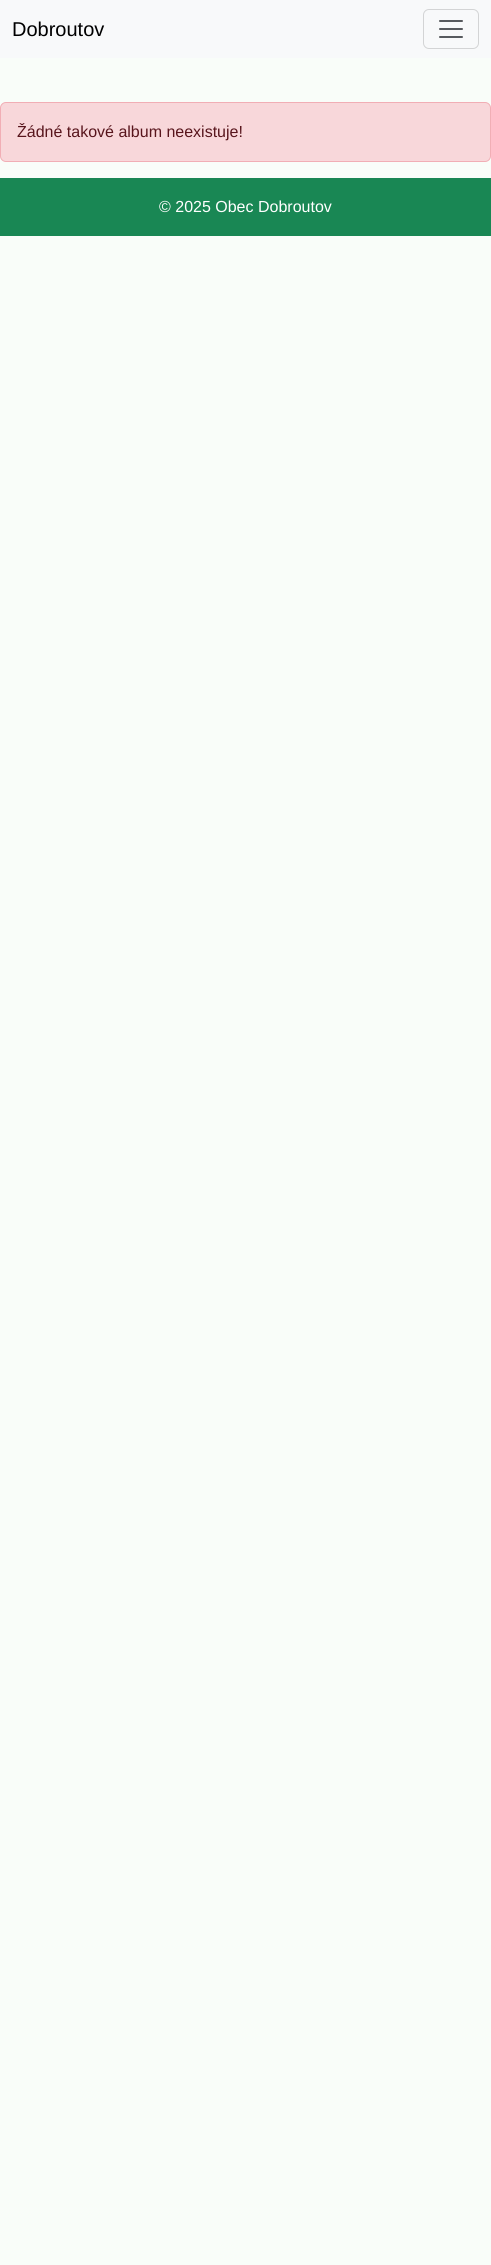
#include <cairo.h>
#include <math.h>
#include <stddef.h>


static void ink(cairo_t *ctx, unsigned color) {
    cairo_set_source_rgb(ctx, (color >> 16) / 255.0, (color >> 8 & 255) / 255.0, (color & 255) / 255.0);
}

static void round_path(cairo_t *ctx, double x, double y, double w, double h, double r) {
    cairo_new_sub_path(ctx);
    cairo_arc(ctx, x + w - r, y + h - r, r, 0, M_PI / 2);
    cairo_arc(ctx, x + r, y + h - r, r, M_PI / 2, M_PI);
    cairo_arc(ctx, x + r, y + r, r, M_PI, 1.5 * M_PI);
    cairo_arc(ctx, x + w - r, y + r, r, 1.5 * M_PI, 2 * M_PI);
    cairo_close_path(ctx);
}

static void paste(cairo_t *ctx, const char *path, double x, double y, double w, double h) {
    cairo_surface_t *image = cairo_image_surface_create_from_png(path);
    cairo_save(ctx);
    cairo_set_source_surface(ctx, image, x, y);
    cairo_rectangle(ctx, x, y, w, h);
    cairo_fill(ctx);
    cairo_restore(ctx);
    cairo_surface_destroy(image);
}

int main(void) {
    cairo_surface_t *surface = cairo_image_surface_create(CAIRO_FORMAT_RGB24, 491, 2265);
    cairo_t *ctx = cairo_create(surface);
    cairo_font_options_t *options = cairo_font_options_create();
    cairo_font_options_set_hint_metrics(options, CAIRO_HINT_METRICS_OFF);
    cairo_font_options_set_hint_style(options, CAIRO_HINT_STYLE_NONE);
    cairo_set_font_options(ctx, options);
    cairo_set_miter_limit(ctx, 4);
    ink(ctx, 0xF9FDF9);
    cairo_paint(ctx);
    ink(ctx, 0xF8F9FA);
    cairo_rectangle(ctx, 0, 0, 491, 58);
    cairo_fill(ctx);
    cairo_select_font_face(ctx, "Liberation Sans", CAIRO_FONT_SLANT_NORMAL, CAIRO_FONT_WEIGHT_NORMAL);
    cairo_set_font_size(ctx, 20);
    ink(ctx, 0x000000);
    cairo_move_to(ctx, 12, 36);
    cairo_show_text(ctx, "Dobroutov");
    round_path(ctx, 423.5, 9.5, 55, 39, 5.5);
    ink(ctx, 0xD3D4D5);
    cairo_set_line_width(ctx, 1);
    cairo_stroke(ctx);
    paste(ctx, "media/1.png", 439, 20, 24, 18);
    ink(ctx, 0xF8D7DA);
    round_path(ctx, 0.5, 102.5, 490, 59, 5.5);
    cairo_fill_preserve(ctx);
    ink(ctx, 0xF1AEB5);
    cairo_stroke(ctx);
    cairo_set_font_size(ctx, 16);
    ink(ctx, 0x58151C);
    cairo_move_to(ctx, 17, 137);
    cairo_show_text(ctx, "Žádné takové album neexistuje!");
    ink(ctx, 0x198754);
    cairo_rectangle(ctx, 0, 178, 491, 58);
    cairo_fill(ctx);
    ink(ctx, 0xFFFFFF);
    cairo_move_to(ctx, 159, 212);
    cairo_show_text(ctx, "© 2025 Obec Dobroutov");
    cairo_surface_write_to_png(surface, "image.png");
    cairo_font_options_destroy(options);
    cairo_destroy(ctx);
    cairo_surface_destroy(surface);
    return 0;
}
